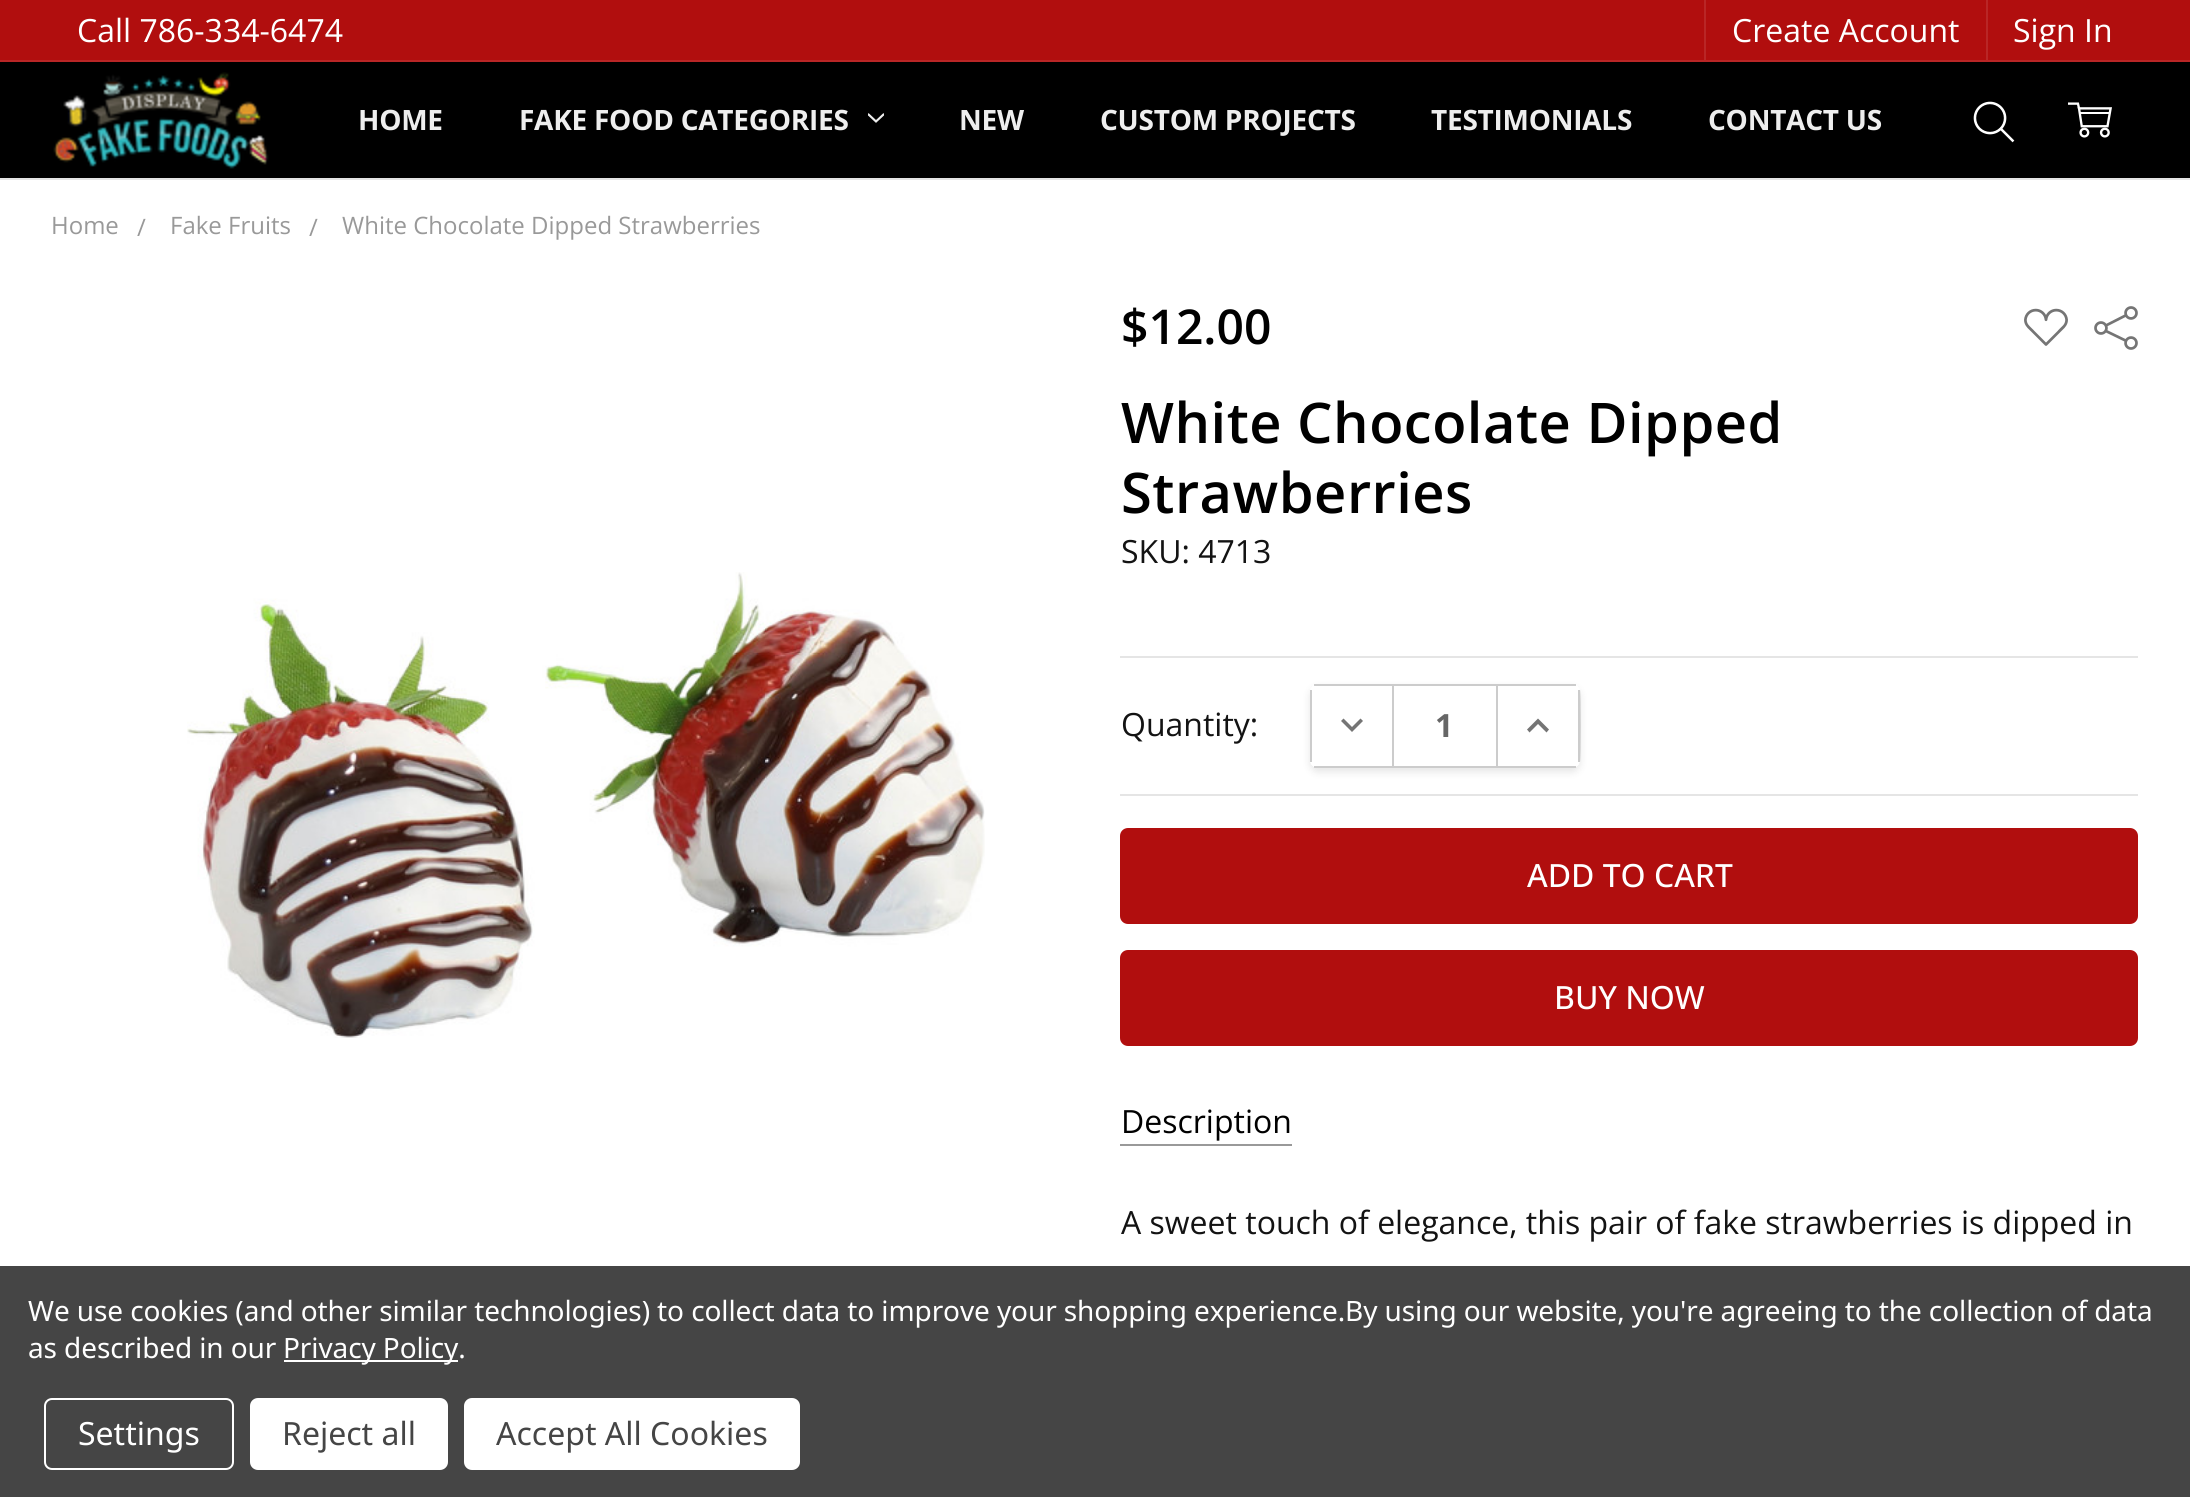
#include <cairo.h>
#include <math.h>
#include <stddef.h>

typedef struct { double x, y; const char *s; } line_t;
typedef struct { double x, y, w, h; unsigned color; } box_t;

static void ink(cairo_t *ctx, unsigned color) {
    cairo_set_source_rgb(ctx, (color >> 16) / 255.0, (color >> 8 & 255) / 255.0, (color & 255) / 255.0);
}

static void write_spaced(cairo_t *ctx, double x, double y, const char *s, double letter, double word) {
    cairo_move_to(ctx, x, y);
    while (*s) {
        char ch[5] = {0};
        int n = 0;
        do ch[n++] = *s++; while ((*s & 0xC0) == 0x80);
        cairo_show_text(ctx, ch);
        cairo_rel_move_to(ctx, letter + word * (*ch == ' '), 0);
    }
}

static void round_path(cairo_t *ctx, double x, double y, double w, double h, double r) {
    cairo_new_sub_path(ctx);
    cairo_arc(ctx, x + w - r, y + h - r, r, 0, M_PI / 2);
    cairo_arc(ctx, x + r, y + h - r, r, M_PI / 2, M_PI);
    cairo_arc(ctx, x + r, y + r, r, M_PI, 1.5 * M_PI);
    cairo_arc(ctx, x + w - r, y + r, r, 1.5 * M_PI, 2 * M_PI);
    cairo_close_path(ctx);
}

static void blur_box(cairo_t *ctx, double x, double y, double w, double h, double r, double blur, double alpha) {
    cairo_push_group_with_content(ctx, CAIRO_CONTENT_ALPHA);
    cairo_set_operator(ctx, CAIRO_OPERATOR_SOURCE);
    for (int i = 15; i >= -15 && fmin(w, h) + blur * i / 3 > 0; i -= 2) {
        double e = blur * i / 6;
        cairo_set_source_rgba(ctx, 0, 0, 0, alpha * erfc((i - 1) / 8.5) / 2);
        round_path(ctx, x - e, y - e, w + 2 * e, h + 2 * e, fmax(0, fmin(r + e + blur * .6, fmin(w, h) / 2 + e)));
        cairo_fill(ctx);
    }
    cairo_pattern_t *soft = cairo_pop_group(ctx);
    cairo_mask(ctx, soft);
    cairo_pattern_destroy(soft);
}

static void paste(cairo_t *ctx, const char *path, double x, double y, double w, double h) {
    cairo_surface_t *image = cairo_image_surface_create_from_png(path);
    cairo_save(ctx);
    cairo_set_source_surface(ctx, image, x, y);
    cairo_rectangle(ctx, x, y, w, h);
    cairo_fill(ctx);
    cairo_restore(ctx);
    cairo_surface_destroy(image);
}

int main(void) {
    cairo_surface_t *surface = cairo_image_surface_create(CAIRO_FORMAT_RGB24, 2190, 1497);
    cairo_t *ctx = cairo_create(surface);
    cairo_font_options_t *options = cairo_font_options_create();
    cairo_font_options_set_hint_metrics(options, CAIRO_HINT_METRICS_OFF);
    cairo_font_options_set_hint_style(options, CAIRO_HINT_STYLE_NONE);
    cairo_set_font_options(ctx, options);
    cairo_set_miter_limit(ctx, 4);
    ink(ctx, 0xFFFFFF);
    cairo_paint(ctx);
    {
        static const box_t items[] = {
            {0, 62, 2190, 116, 0x000000},
            {0, 178, 2190, 2, 0xE5E5E5},
            {0, 0, 2190, 60, 0xB10E0E},
            {0, 60, 2190, 2, 0xB92626},
        };
        for (size_t i = 0; i < sizeof items / sizeof *items; i++) {
            ink(ctx, items[i].color);
            cairo_rectangle(ctx, items[i].x, items[i].y, items[i].w, items[i].h);
            cairo_fill(ctx);
        }
    }
    cairo_select_font_face(ctx, "Open Sans", CAIRO_FONT_SLANT_NORMAL, CAIRO_FONT_WEIGHT_NORMAL);
    cairo_set_font_size(ctx, 32);
    ink(ctx, 0xFFFFFF);
    cairo_move_to(ctx, 77, 42);
    cairo_show_text(ctx, "Call 786-334-6474");
    ink(ctx, 0xB92626);
    cairo_rectangle(ctx, 1704, 0, 2, 60);
    cairo_fill(ctx);
    ink(ctx, 0xFFFFFF);
    cairo_move_to(ctx, 1732, 42);
    cairo_show_text(ctx, "Create Account");
    ink(ctx, 0xB92626);
    cairo_rectangle(ctx, 1986, 0, 2, 60);
    cairo_fill(ctx);
    ink(ctx, 0xFFFFFF);
    cairo_move_to(ctx, 2013, 42);
    cairo_show_text(ctx, "Sign In");
    paste(ctx, "media/1.png", 53, 72, 216, 97);
    cairo_select_font_face(ctx, "Open Sans", CAIRO_FONT_SLANT_NORMAL, CAIRO_FONT_WEIGHT_BOLD);
    cairo_set_font_size(ctx, 28);
    ink(ctx, 0xEEEEEE);
    write_spaced(ctx, 358, 130, "HOME", -0.25, 0);
    write_spaced(ctx, 519, 130, "FAKE FOOD CATEGORIES", -0.25, 0);
    paste(ctx, "media/2.png", 868, 113, 16, 10);
    {
        static const line_t items[] = {
            {959, 130, "NEW"},
            {1100, 130, "CUSTOM PROJECTS"},
            {1431, 130, "TESTIMONIALS"},
            {1708, 130, "CONTACT US"},
        };
        for (size_t i = 0; i < sizeof items / sizeof *items; i++) {
            write_spaced(ctx, items[i].x, items[i].y, items[i].s, -0.25, 0);
        }
    }
    paste(ctx, "media/3.png", 1973, 101, 42, 42);
    paste(ctx, "media/4.png", 2068, 102, 44, 36);
    cairo_select_font_face(ctx, "Open Sans", CAIRO_FONT_SLANT_NORMAL, CAIRO_FONT_WEIGHT_NORMAL);
    cairo_set_font_size(ctx, 24);
    ink(ctx, 0x999999);
    {
        static const line_t items[] = {
            {51, 234, "Home"},
            {137, 236, "/"},
            {170, 234, "Fake Fruits"},
            {309, 236, "/"},
            {342, 234, "White Chocolate Dipped Strawberries"},
        };
        for (size_t i = 0; i < sizeof items / sizeof *items; i++) {
            cairo_move_to(ctx, items[i].x, items[i].y);
            cairo_show_text(ctx, items[i].s);
        }
    }
    cairo_select_font_face(ctx, "Open Sans SemiBold", CAIRO_FONT_SLANT_NORMAL, CAIRO_FONT_WEIGHT_NORMAL);
    cairo_set_font_size(ctx, 48);
    ink(ctx, 0x000000);
    cairo_move_to(ctx, 1121, 344);
    cairo_show_text(ctx, "$12.00");
    paste(ctx, "media/5.png", 2024, 308, 44, 38);
    paste(ctx, "media/6.png", 2094, 306, 44, 44);
    cairo_set_font_size(ctx, 56);
    write_spaced(ctx, 1121, 443, "White Chocolate Dipped", 0.5, 0);
    write_spaced(ctx, 1121, 513, "Strawberries", 0.5, 0);
    cairo_select_font_face(ctx, "Open Sans", CAIRO_FONT_SLANT_NORMAL, CAIRO_FONT_WEIGHT_NORMAL);
    cairo_set_font_size(ctx, 32);
    ink(ctx, 0x131313);
    cairo_move_to(ctx, 1121, 563);
    cairo_show_text(ctx, "SKU: 4713");
    paste(ctx, "media/7.png", 187, 572, 798, 466);
    ink(ctx, 0xE5E5E5);
    cairo_rectangle(ctx, 1120, 656, 1018, 2);
    cairo_fill(ctx);
    cairo_rectangle(ctx, 1120, 794, 1018, 2);
    cairo_fill(ctx);
    ink(ctx, 0x131313);
    cairo_move_to(ctx, 1121, 736);
    cairo_show_text(ctx, "Quantity:");
    cairo_save(ctx);
    cairo_set_fill_rule(ctx, CAIRO_FILL_RULE_EVEN_ODD);
    cairo_new_path(ctx);
    cairo_move_to(ctx, 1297, 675);
    cairo_line_to(ctx, 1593, 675);
    cairo_line_to(ctx, 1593, 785);
    cairo_line_to(ctx, 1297, 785);
    cairo_close_path(ctx);
    cairo_move_to(ctx, 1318, 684);
    cairo_line_to(ctx, 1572, 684);
    cairo_curve_to(ctx, 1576.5, 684, 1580, 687.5, 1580, 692);
    cairo_line_to(ctx, 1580, 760);
    cairo_curve_to(ctx, 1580, 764.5, 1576.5, 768, 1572, 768);
    cairo_line_to(ctx, 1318, 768);
    cairo_curve_to(ctx, 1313.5, 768, 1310, 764.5, 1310, 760);
    cairo_line_to(ctx, 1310, 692);
    cairo_curve_to(ctx, 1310, 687.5, 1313.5, 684, 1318, 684);
    cairo_close_path(ctx);
    cairo_clip(ctx);
    ink(ctx, 0x000000);
    blur_box(ctx, 1310, 688, 270, 84, 8, 4, 0.1);
    cairo_restore(ctx);
    {
        static const box_t items[] = {
            {1314, 684, 262, 2, 0xCCCCCC},
            {1314, 766, 262, 2, 0xCCCCCC},
            {1392, 686, 2, 80, 0xCCCCCC},
        };
        for (size_t i = 0; i < sizeof items / sizeof *items; i++) {
            ink(ctx, items[i].color);
            cairo_rectangle(ctx, items[i].x, items[i].y, items[i].w, items[i].h);
            cairo_fill(ctx);
        }
    }
    cairo_new_path(ctx);
    cairo_move_to(ctx, 1310, 692);
    cairo_line_to(ctx, 1310, 760);
    cairo_line_to(ctx, 1310, 762);
    cairo_line_to(ctx, 1312, 762);
    cairo_line_to(ctx, 1312, 690);
    cairo_line_to(ctx, 1310, 690);
    cairo_close_path(ctx);
    cairo_fill(ctx);
    ink(ctx, 0x757575);
    cairo_new_path(ctx);
    cairo_move_to(ctx, 1343.5, 718.5);
    cairo_line_to(ctx, 1352, 727);
    cairo_line_to(ctx, 1360.5, 718.5);
    cairo_line_to(ctx, 1363, 721);
    cairo_line_to(ctx, 1352, 732);
    cairo_line_to(ctx, 1341, 721);
    cairo_close_path(ctx);
    cairo_fill(ctx);
    cairo_select_font_face(ctx, "Open Sans", CAIRO_FONT_SLANT_NORMAL, CAIRO_FONT_WEIGHT_BOLD);
    ink(ctx, 0x666666);
    cairo_move_to(ctx, 1435, 737);
    cairo_show_text(ctx, "1");
    ink(ctx, 0xCCCCCC);
    cairo_new_path(ctx);
    cairo_move_to(ctx, 1578, 690);
    cairo_line_to(ctx, 1578, 762);
    cairo_line_to(ctx, 1580, 762);
    cairo_curve_to(ctx, 1581, 760, 1581, 692, 1580, 690);
    cairo_close_path(ctx);
    cairo_fill(ctx);
    cairo_rectangle(ctx, 1496, 686, 2, 80);
    cairo_fill(ctx);
    ink(ctx, 0x757575);
    cairo_new_path(ctx);
    cairo_move_to(ctx, 1529.5, 732.5);
    cairo_line_to(ctx, 1538, 724);
    cairo_line_to(ctx, 1546.5, 732.5);
    cairo_line_to(ctx, 1549, 729.5);
    cairo_line_to(ctx, 1538, 718.5);
    cairo_line_to(ctx, 1527, 729.5);
    cairo_close_path(ctx);
    cairo_fill(ctx);
    ink(ctx, 0xB10E0E);
    round_path(ctx, 1121, 829, 1016, 94, 7);
    cairo_fill_preserve(ctx);
    cairo_stroke(ctx);
    cairo_select_font_face(ctx, "Open Sans Medium", CAIRO_FONT_SLANT_NORMAL, CAIRO_FONT_WEIGHT_NORMAL);
    ink(ctx, 0xFFFFFF);
    cairo_move_to(ctx, 1527, 887);
    cairo_show_text(ctx, "ADD TO CART");
    ink(ctx, 0xB10E0E);
    round_path(ctx, 1121, 951, 1016, 94, 7);
    cairo_fill_preserve(ctx);
    cairo_stroke(ctx);
    ink(ctx, 0xFFFFFF);
    cairo_move_to(ctx, 1554, 1009);
    cairo_show_text(ctx, "BUY NOW");
    ink(ctx, 0x999999);
    cairo_rectangle(ctx, 1120, 1144, 172, 2);
    cairo_fill(ctx);
    cairo_select_font_face(ctx, "Open Sans", CAIRO_FONT_SLANT_NORMAL, CAIRO_FONT_WEIGHT_NORMAL);
    ink(ctx, 0x000000);
    cairo_move_to(ctx, 1121, 1133);
    cairo_show_text(ctx, "Description");
    ink(ctx, 0x131313);
    cairo_move_to(ctx, 1121, 1234);
    cairo_show_text(ctx, "A sweet touch of elegance, this pair of fake strawberries is dipped in");
    ink(ctx, 0x454545);
    cairo_rectangle(ctx, 0, 1266, 2190, 231);
    cairo_fill(ctx);
    cairo_select_font_face(ctx, "Noto Sans", CAIRO_FONT_SLANT_NORMAL, CAIRO_FONT_WEIGHT_NORMAL);
    cairo_set_font_size(ctx, 28);
    ink(ctx, 0xFFFFFF);
    write_spaced(ctx, 28, 1321, "We use cookies (and other similar technologies) to collect data to improve your shopping experience.By using our website, you're agreeing to the collection of data", -0.1, 0);
    write_spaced(ctx, 28, 1358, "as described in our", -0.1, 0);
    cairo_rectangle(ctx, 284, 1360, 174, 2);
    cairo_fill(ctx);
    write_spaced(ctx, 283, 1358, "Privacy Policy.", -0.1, 0);
    round_path(ctx, 45, 1399, 188, 70, 7);
    cairo_stroke(ctx);
    cairo_set_font_size(ctx, 32);
    cairo_move_to(ctx, 78, 1445);
    cairo_show_text(ctx, "Settings");
    round_path(ctx, 250, 1398, 198, 72, 8);
    cairo_fill(ctx);
    ink(ctx, 0x454545);
    cairo_move_to(ctx, 282, 1445);
    cairo_show_text(ctx, "Reject all");
    ink(ctx, 0xFFFFFF);
    round_path(ctx, 464, 1398, 336, 72, 8);
    cairo_fill(ctx);
    ink(ctx, 0x454545);
    cairo_move_to(ctx, 496, 1445);
    cairo_show_text(ctx, "Accept All Cookies");
    cairo_surface_write_to_png(surface, "image.png");
    cairo_font_options_destroy(options);
    cairo_destroy(ctx);
    cairo_surface_destroy(surface);
    return 0;
}
